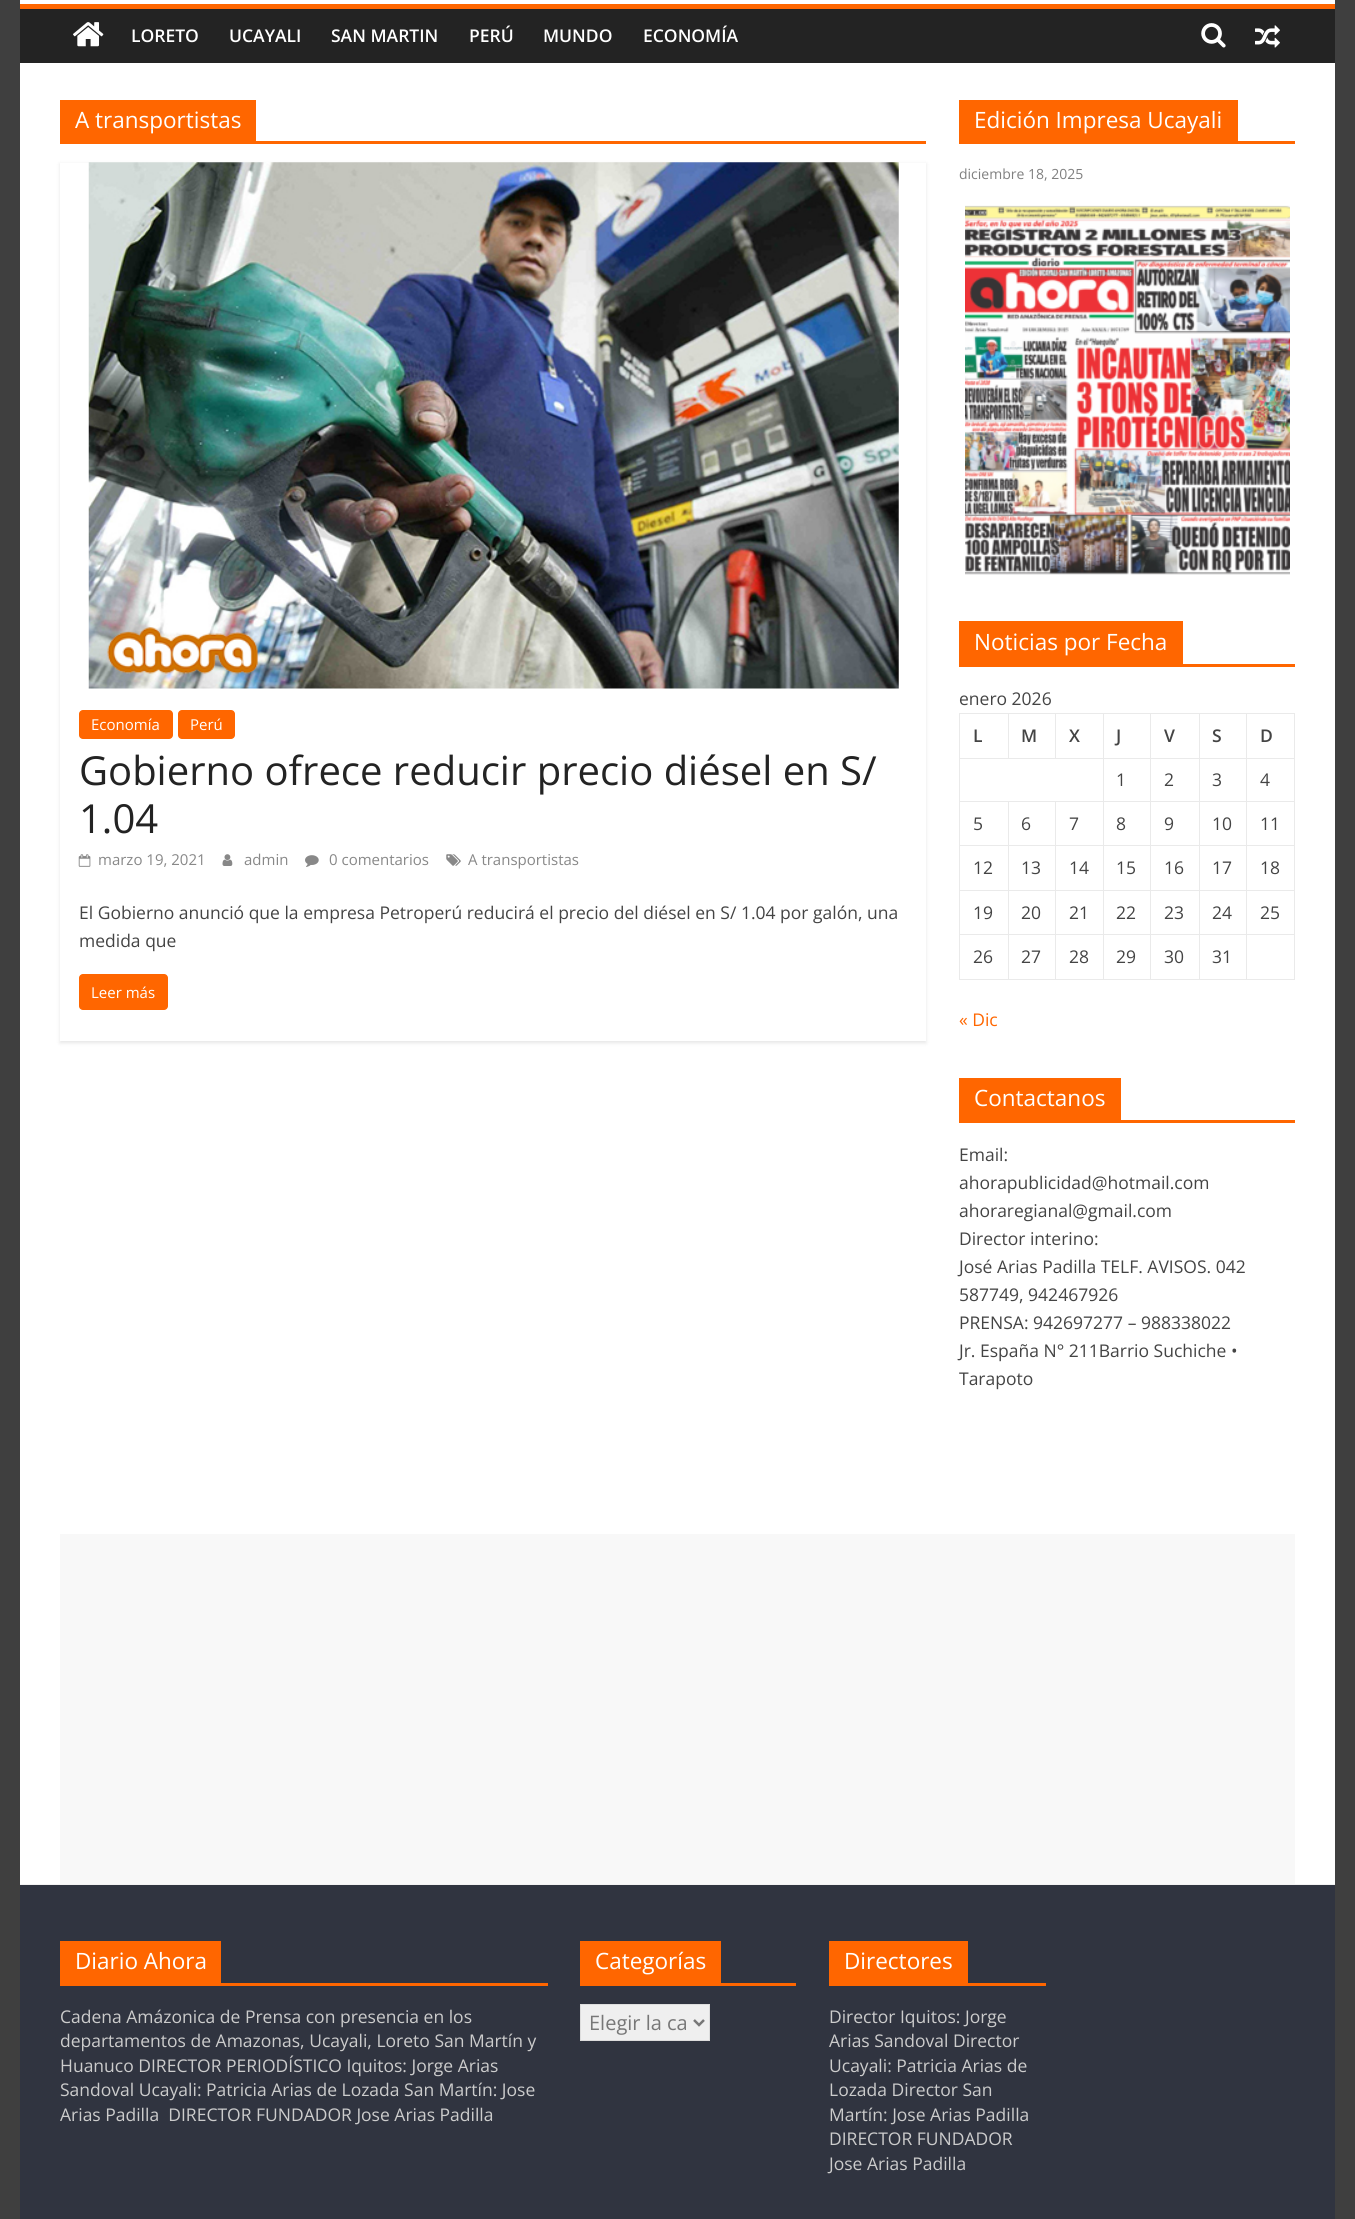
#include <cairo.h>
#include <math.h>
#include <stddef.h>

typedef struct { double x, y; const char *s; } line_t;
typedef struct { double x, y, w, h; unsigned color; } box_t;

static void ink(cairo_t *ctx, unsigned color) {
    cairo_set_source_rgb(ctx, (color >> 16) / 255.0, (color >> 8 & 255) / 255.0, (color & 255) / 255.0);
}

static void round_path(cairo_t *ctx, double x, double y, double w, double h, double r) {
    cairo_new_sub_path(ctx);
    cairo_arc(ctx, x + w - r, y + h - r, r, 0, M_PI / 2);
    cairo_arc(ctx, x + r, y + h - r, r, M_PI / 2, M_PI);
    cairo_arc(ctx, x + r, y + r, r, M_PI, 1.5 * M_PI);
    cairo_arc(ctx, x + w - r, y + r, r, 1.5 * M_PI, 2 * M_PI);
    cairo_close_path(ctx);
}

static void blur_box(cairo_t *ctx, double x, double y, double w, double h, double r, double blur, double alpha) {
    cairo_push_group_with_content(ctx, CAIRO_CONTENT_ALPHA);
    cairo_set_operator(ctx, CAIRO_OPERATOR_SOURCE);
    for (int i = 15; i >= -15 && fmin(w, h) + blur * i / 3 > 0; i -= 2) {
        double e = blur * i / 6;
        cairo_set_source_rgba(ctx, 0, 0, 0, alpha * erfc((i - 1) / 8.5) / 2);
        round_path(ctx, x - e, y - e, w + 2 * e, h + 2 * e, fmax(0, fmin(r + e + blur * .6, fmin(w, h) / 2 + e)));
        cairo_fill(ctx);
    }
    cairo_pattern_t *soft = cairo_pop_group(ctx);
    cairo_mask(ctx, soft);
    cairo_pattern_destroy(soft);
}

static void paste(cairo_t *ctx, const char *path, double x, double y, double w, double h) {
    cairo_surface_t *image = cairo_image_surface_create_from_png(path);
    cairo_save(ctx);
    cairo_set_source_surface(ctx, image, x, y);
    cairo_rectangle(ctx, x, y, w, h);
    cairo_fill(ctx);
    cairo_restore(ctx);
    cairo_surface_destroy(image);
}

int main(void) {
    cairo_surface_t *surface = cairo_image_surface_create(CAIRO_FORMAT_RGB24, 1355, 2219);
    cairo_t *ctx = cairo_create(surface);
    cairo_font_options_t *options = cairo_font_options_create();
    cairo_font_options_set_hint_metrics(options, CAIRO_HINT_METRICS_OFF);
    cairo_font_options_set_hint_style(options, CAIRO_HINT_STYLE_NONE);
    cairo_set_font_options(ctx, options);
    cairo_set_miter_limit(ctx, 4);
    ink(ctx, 0x3F3F3F);
    cairo_paint(ctx);
    {
        static const box_t items[] = {
            {20, 0, 1315, 4, 0xFFFFFF},
            {20, 9, 1315, 54, 0x232323},
            {20, 4, 1315, 5, 0xFF6600},
        };
        for (size_t i = 0; i < sizeof items / sizeof *items; i++) {
            ink(ctx, items[i].color);
            cairo_rectangle(ctx, items[i].x, items[i].y, items[i].w, items[i].h);
            cairo_fill(ctx);
        }
    }
    paste(ctx, "media/1.png", 73, 22, 31, 25);
    cairo_select_font_face(ctx, "Open Sans SemiBold", CAIRO_FONT_SLANT_NORMAL, CAIRO_FONT_WEIGHT_NORMAL);
    cairo_set_font_size(ctx, 17.5);
    ink(ctx, 0xFFFFFF);
    {
        static const line_t items[] = {
            {131, 42, "LORETO"},
            {229, 42, "UCAYALI"},
            {331, 42, "SAN MARTIN"},
            {469, 42, "PERÚ"},
            {543, 42, "MUNDO"},
            {643, 42, "ECONOMÍA"},
        };
        for (size_t i = 0; i < sizeof items / sizeof *items; i++) {
            cairo_move_to(ctx, items[i].x, items[i].y);
            cairo_show_text(ctx, items[i].s);
        }
    }
    paste(ctx, "media/2.png", 1201, 23, 25, 25);
    paste(ctx, "media/3.png", 1255, 25, 25, 23);
    {
        static const box_t items[] = {
            {20, 63, 1315, 1821, 0xFFFFFF},
            {60, 141, 866, 3, 0xFF6600},
            {60, 100, 196, 41, 0xFF6600},
        };
        for (size_t i = 0; i < sizeof items / sizeof *items; i++) {
            ink(ctx, items[i].color);
            cairo_rectangle(ctx, items[i].x, items[i].y, items[i].w, items[i].h);
            cairo_fill(ctx);
        }
    }
    cairo_select_font_face(ctx, "Open Sans", CAIRO_FONT_SLANT_NORMAL, CAIRO_FONT_WEIGHT_NORMAL);
    cairo_set_font_size(ctx, 22.5);
    ink(ctx, 0xFFFFFF);
    cairo_move_to(ctx, 75, 128);
    cairo_show_text(ctx, "A transportistas");
    cairo_save(ctx);
    cairo_set_fill_rule(ctx, CAIRO_FILL_RULE_EVEN_ODD);
    cairo_new_path(ctx);
    cairo_move_to(ctx, 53, 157);
    cairo_line_to(ctx, 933, 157);
    cairo_line_to(ctx, 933, 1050);
    cairo_line_to(ctx, 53, 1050);
    cairo_close_path(ctx);
    cairo_move_to(ctx, 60, 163);
    cairo_line_to(ctx, 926, 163);
    cairo_line_to(ctx, 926, 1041);
    cairo_line_to(ctx, 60, 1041);
    cairo_close_path(ctx);
    cairo_clip(ctx);
    ink(ctx, 0x000000);
    blur_box(ctx, 60, 164, 866, 879, 0, 2, 0.1);
    cairo_restore(ctx);
    paste(ctx, "media/4.png", 88, 162, 811, 527);
    ink(ctx, 0xFF6600);
    round_path(ctx, 79, 710, 94, 29, 4);
    cairo_fill(ctx);
    cairo_set_font_size(ctx, 15);
    ink(ctx, 0xFFFFFF);
    cairo_move_to(ctx, 91, 730);
    cairo_show_text(ctx, "Economía");
    ink(ctx, 0xFF6600);
    round_path(ctx, 178, 710, 57, 29, 4);
    cairo_fill(ctx);
    ink(ctx, 0xFFFFFF);
    cairo_move_to(ctx, 190, 730);
    cairo_show_text(ctx, "Perú");
    cairo_set_font_size(ctx, 40);
    ink(ctx, 0x232323);
    cairo_move_to(ctx, 79, 785);
    cairo_show_text(ctx, "Gobierno ofrece reducir precio diésel en S/");
    cairo_move_to(ctx, 79, 833);
    cairo_show_text(ctx, "1.04");
    paste(ctx, "media/5.png", 78, 854, 13, 13);
    cairo_set_font_size(ctx, 15);
    ink(ctx, 0x888888);
    cairo_move_to(ctx, 98, 865);
    cairo_show_text(ctx, "marzo 19, 2021");
    paste(ctx, "media/6.png", 222, 854, 11, 12);
    cairo_move_to(ctx, 244, 865);
    cairo_show_text(ctx, "admin");
    paste(ctx, "media/7.png", 305, 855, 14, 12);
    cairo_move_to(ctx, 329, 865);
    cairo_show_text(ctx, "0 comentarios");
    paste(ctx, "media/8.png", 446, 854, 15, 12);
    cairo_move_to(ctx, 468, 865);
    cairo_show_text(ctx, "A transportistas");
    cairo_set_font_size(ctx, 17.5);
    ink(ctx, 0x444444);
    cairo_move_to(ctx, 79, 919);
    cairo_show_text(ctx, "El Gobierno anunció que la empresa Petroperú reducirá el precio del diésel en S/ 1.04 por galón, una");
    cairo_move_to(ctx, 79, 947);
    cairo_show_text(ctx, "medida que");
    ink(ctx, 0xFF6600);
    round_path(ctx, 79, 974, 89, 36, 4);
    cairo_fill(ctx);
    cairo_set_font_size(ctx, 15);
    ink(ctx, 0xFFFFFF);
    cairo_move_to(ctx, 91, 998);
    cairo_show_text(ctx, "Leer más");
    ink(ctx, 0xFF6600);
    cairo_rectangle(ctx, 959, 141, 336, 3);
    cairo_fill(ctx);
    cairo_rectangle(ctx, 959, 100, 279, 41);
    cairo_fill(ctx);
    cairo_set_font_size(ctx, 22.5);
    ink(ctx, 0xFFFFFF);
    cairo_move_to(ctx, 974, 128);
    cairo_show_text(ctx, "Edición Impresa Ucayali");
    cairo_set_font_size(ctx, 14);
    ink(ctx, 0x808080);
    cairo_move_to(ctx, 959, 179);
    cairo_show_text(ctx, "diciembre 18, 2025");
    paste(ctx, "media/9.png", 965, 205, 325, 370);
    ink(ctx, 0xFF6600);
    cairo_rectangle(ctx, 959, 664, 336, 3);
    cairo_fill(ctx);
    cairo_rectangle(ctx, 959, 621, 224, 43);
    cairo_fill(ctx);
    cairo_set_font_size(ctx, 22.5);
    ink(ctx, 0xFFFFFF);
    cairo_move_to(ctx, 974, 650);
    cairo_show_text(ctx, "Noticias por Fecha");
    cairo_set_font_size(ctx, 17.5);
    ink(ctx, 0x444444);
    cairo_move_to(ctx, 959, 705);
    cairo_show_text(ctx, "enero 2026");
    {
        static const box_t items[] = {
            {1246, 713, 49, 1, 0xEAEAEA},
            {1246, 758, 49, 1, 0xEAEAEA},
            {1246, 801, 49, 1, 0xEAEAEA},
            {1246, 845, 49, 1, 0xEAEAEA},
            {1246, 890, 49, 1, 0xEAEAEA},
            {1246, 934, 49, 1, 0xEAEAEA},
            {1294, 934, 1, 46, 0xEAEAEA},
            {1246, 979, 49, 1, 0xEAEAEA},
            {1246, 934, 1, 46, 0xEAEAEA},
            {1199, 934, 49, 1, 0xEAEAEA},
            {1246, 890, 1, 45, 0xEAEAEA},
            {1199, 890, 49, 1, 0xEAEAEA},
            {1246, 845, 1, 46, 0xEAEAEA},
            {1199, 845, 49, 1, 0xEAEAEA},
            {1246, 801, 1, 45, 0xEAEAEA},
            {1199, 801, 49, 1, 0xEAEAEA},
            {1246, 758, 1, 45, 0xEAEAEA},
            {1199, 758, 49, 1, 0xEAEAEA},
            {1246, 713, 1, 46, 0xEAEAEA},
            {1199, 713, 49, 1, 0xEAEAEA},
            {1199, 979, 49, 1, 0xEAEAEA},
            {1199, 934, 1, 46, 0xEAEAEA},
            {1150, 934, 50, 1, 0xEAEAEA},
            {1199, 890, 1, 45, 0xEAEAEA},
            {1150, 890, 50, 1, 0xEAEAEA},
            {1199, 845, 1, 46, 0xEAEAEA},
            {1150, 845, 50, 1, 0xEAEAEA},
            {1199, 801, 1, 45, 0xEAEAEA},
            {1150, 801, 50, 1, 0xEAEAEA},
            {1199, 758, 1, 45, 0xEAEAEA},
            {1150, 758, 50, 1, 0xEAEAEA},
            {1199, 713, 1, 46, 0xEAEAEA},
            {1150, 713, 50, 1, 0xEAEAEA},
            {1150, 979, 50, 1, 0xEAEAEA},
            {1150, 934, 1, 46, 0xEAEAEA},
            {1103, 934, 48, 1, 0xEAEAEA},
            {1150, 890, 1, 45, 0xEAEAEA},
            {1103, 890, 48, 1, 0xEAEAEA},
            {1150, 845, 1, 46, 0xEAEAEA},
            {1103, 845, 48, 1, 0xEAEAEA},
            {1150, 801, 1, 45, 0xEAEAEA},
            {1103, 801, 48, 1, 0xEAEAEA},
            {1150, 758, 1, 45, 0xEAEAEA},
            {1103, 758, 48, 1, 0xEAEAEA},
            {1150, 713, 1, 46, 0xEAEAEA},
            {1103, 713, 48, 1, 0xEAEAEA},
            {1103, 979, 48, 1, 0xEAEAEA},
            {1103, 934, 1, 46, 0xEAEAEA},
            {1055, 934, 49, 1, 0xEAEAEA},
            {1103, 890, 1, 45, 0xEAEAEA},
            {1055, 890, 49, 1, 0xEAEAEA},
            {1103, 845, 1, 46, 0xEAEAEA},
            {1055, 845, 49, 1, 0xEAEAEA},
            {1103, 801, 1, 45, 0xEAEAEA},
            {1055, 801, 49, 1, 0xEAEAEA},
            {1103, 758, 1, 45, 0xEAEAEA},
            {959, 758, 145, 1, 0xEAEAEA},
            {1103, 713, 1, 46, 0xEAEAEA},
            {1055, 713, 49, 1, 0xEAEAEA},
            {1055, 713, 1, 46, 0xEAEAEA},
            {1008, 713, 48, 1, 0xEAEAEA},
            {1008, 713, 1, 46, 0xEAEAEA},
            {959, 713, 50, 1, 0xEAEAEA},
            {1055, 979, 49, 1, 0xEAEAEA},
            {1055, 934, 1, 46, 0xEAEAEA},
            {1008, 934, 48, 1, 0xEAEAEA},
            {1055, 890, 1, 45, 0xEAEAEA},
            {1008, 890, 48, 1, 0xEAEAEA},
            {1055, 845, 1, 46, 0xEAEAEA},
            {1008, 845, 48, 1, 0xEAEAEA},
            {1055, 801, 1, 45, 0xEAEAEA},
            {1008, 801, 48, 1, 0xEAEAEA},
            {1008, 979, 48, 1, 0xEAEAEA},
            {1008, 934, 1, 46, 0xEAEAEA},
            {959, 934, 50, 1, 0xEAEAEA},
            {1008, 890, 1, 45, 0xEAEAEA},
            {959, 890, 50, 1, 0xEAEAEA},
            {1008, 845, 1, 46, 0xEAEAEA},
            {959, 845, 50, 1, 0xEAEAEA},
            {1008, 801, 1, 45, 0xEAEAEA},
            {959, 801, 50, 1, 0xEAEAEA},
            {959, 979, 50, 1, 0xEAEAEA},
            {959, 934, 1, 46, 0xEAEAEA},
            {959, 890, 1, 45, 0xEAEAEA},
            {959, 845, 1, 46, 0xEAEAEA},
            {959, 801, 1, 45, 0xEAEAEA},
            {959, 758, 1, 45, 0xEAEAEA},
            {959, 713, 1, 46, 0xEAEAEA},
        };
        for (size_t i = 0; i < sizeof items / sizeof *items; i++) {
            ink(ctx, items[i].color);
            cairo_rectangle(ctx, items[i].x, items[i].y, items[i].w, items[i].h);
            cairo_fill(ctx);
        }
    }
    cairo_select_font_face(ctx, "Open Sans SemiBold", CAIRO_FONT_SLANT_NORMAL, CAIRO_FONT_WEIGHT_NORMAL);
    ink(ctx, 0x444444);
    {
        static const line_t items[] = {
            {973, 742, "L"},
            {1021, 742, "M"},
            {1069, 742, "X"},
            {1116, 742, "J"},
            {1164, 742, "V"},
            {1212, 742, "S"},
        };
        for (size_t i = 0; i < sizeof items / sizeof *items; i++) {
            cairo_move_to(ctx, items[i].x, items[i].y);
            cairo_show_text(ctx, items[i].s);
        }
    }
    {
        static const box_t items[] = {
            {1294, 890, 1, 45, 0xEAEAEA},
            {1294, 845, 1, 46, 0xEAEAEA},
            {1294, 801, 1, 45, 0xEAEAEA},
            {1294, 758, 1, 45, 0xEAEAEA},
            {1294, 713, 1, 46, 0xEAEAEA},
        };
        for (size_t i = 0; i < sizeof items / sizeof *items; i++) {
            ink(ctx, items[i].color);
            cairo_rectangle(ctx, items[i].x, items[i].y, items[i].w, items[i].h);
            cairo_fill(ctx);
        }
    }
    ink(ctx, 0x444444);
    cairo_move_to(ctx, 1260, 742);
    cairo_show_text(ctx, "D");
    cairo_select_font_face(ctx, "Open Sans", CAIRO_FONT_SLANT_NORMAL, CAIRO_FONT_WEIGHT_NORMAL);
    {
        static const line_t items[] = {
            {1116, 786, "1"},
            {1164, 786, "2"},
            {1212, 786, "3"},
            {1260, 786, "4"},
            {973, 830, "5"},
            {1021, 830, "6"},
            {1069, 830, "7"},
            {1116, 830, "8"},
            {1164, 830, "9"},
            {1212, 830, "10"},
            {1260, 830, "11"},
            {973, 874, "12"},
            {1021, 874, "13"},
            {1069, 874, "14"},
            {1116, 874, "15"},
            {1164, 874, "16"},
            {1212, 874, "17"},
            {1260, 874, "18"},
            {973, 919, "19"},
            {1021, 919, "20"},
            {1069, 919, "21"},
            {1116, 919, "22"},
            {1164, 919, "23"},
            {1212, 919, "24"},
            {1260, 919, "25"},
            {973, 963, "26"},
            {1021, 963, "27"},
            {1069, 963, "28"},
            {1116, 963, "29"},
            {1164, 963, "30"},
            {1212, 963, "31"},
        };
        for (size_t i = 0; i < sizeof items / sizeof *items; i++) {
            cairo_move_to(ctx, items[i].x, items[i].y);
            cairo_show_text(ctx, items[i].s);
        }
    }
    ink(ctx, 0xFF6600);
    cairo_move_to(ctx, 959, 1026);
    cairo_show_text(ctx, "« Dic");
    cairo_rectangle(ctx, 959, 1120, 336, 3);
    cairo_fill(ctx);
    cairo_rectangle(ctx, 959, 1078, 162, 42);
    cairo_fill(ctx);
    cairo_set_font_size(ctx, 22.5);
    ink(ctx, 0xFFFFFF);
    cairo_move_to(ctx, 974, 1106);
    cairo_show_text(ctx, "Contactanos");
    cairo_set_font_size(ctx, 17.5);
    ink(ctx, 0x444444);
    {
        static const line_t items[] = {
            {959, 1161, "Email:"},
            {959, 1189, "ahorapublicidad@hotmail.com"},
            {959, 1217, "ahoraregianal@gmail.com"},
            {959, 1245, "Director interino:"},
            {959, 1273, "José Arias Padilla TELF. AVISOS. 042"},
            {959, 1301, "587749, 942467926"},
            {959, 1329, "PRENSA: 942697277 – 988338022"},
            {959, 1357, "Jr. España N° 211Barrio Suchiche •"},
            {959, 1385, "Tarapoto"},
        };
        for (size_t i = 0; i < sizeof items / sizeof *items; i++) {
            cairo_move_to(ctx, items[i].x, items[i].y);
            cairo_show_text(ctx, items[i].s);
        }
    }
    {
        static const box_t items[] = {
            {60, 1534, 1235, 350, 0xF8F8F8},
            {20, 1885, 1315, 334, 0x303440},
            {20, 1884, 1315, 1, 0xF2F2F2},
            {60, 1983, 488, 3, 0xFF6600},
            {60, 1941, 161, 42, 0xFF6600},
        };
        for (size_t i = 0; i < sizeof items / sizeof *items; i++) {
            ink(ctx, items[i].color);
            cairo_rectangle(ctx, items[i].x, items[i].y, items[i].w, items[i].h);
            cairo_fill(ctx);
        }
    }
    cairo_set_font_size(ctx, 22.5);
    ink(ctx, 0xFFFFFF);
    cairo_move_to(ctx, 75, 1969);
    cairo_show_text(ctx, "Diario Ahora");
    cairo_set_font_size(ctx, 17.5);
    ink(ctx, 0xCCCCCC);
    {
        static const line_t items[] = {
            {60, 2023, "Cadena Amázonica de Prensa con presencia en los"},
            {60, 2047, "departamentos de Amazonas, Ucayali, Loreto San Martín y"},
            {60, 2072, "Huanuco DIRECTOR PERIODÍSTICO Iquitos: Jorge Arias"},
            {60, 2096, "Sandoval Ucayali: Patricia Arias de Lozada San Martín: Jose"},
            {60, 2121, "Arias Padilla  DIRECTOR FUNDADOR Jose Arias Padilla"},
        };
        for (size_t i = 0; i < sizeof items / sizeof *items; i++) {
            cairo_move_to(ctx, items[i].x, items[i].y);
            cairo_show_text(ctx, items[i].s);
        }
    }
    ink(ctx, 0xFF6600);
    cairo_rectangle(ctx, 580, 1983, 216, 3);
    cairo_fill(ctx);
    cairo_rectangle(ctx, 580, 1941, 141, 42);
    cairo_fill(ctx);
    cairo_set_font_size(ctx, 22.5);
    ink(ctx, 0xFFFFFF);
    cairo_move_to(ctx, 595, 1969);
    cairo_show_text(ctx, "Categorías");
    ink(ctx, 0xEFEFEF);
    cairo_rectangle(ctx, 580.5, 2004.5, 129, 36);
    cairo_fill_preserve(ctx);
    ink(ctx, 0xDDDDDD);
    cairo_set_line_width(ctx, 1);
    cairo_stroke(ctx);
    cairo_new_path(ctx);
    cairo_move_to(ctx, 694, 2020);
    cairo_line_to(ctx, 699, 2025);
    cairo_line_to(ctx, 704, 2020);
    ink(ctx, 0x777777);
    cairo_set_line_width(ctx, 2.5);
    cairo_stroke(ctx);
    cairo_set_font_size(ctx, 20);
    cairo_move_to(ctx, 589, 2030);
    cairo_show_text(ctx, "Elegir la ca");
    ink(ctx, 0xFF6600);
    cairo_rectangle(ctx, 829, 1983, 217, 3);
    cairo_fill(ctx);
    cairo_rectangle(ctx, 829, 1941, 139, 42);
    cairo_fill(ctx);
    cairo_set_font_size(ctx, 22.5);
    ink(ctx, 0xFFFFFF);
    cairo_move_to(ctx, 844, 1969);
    cairo_show_text(ctx, "Directores");
    cairo_set_font_size(ctx, 17.5);
    ink(ctx, 0xCCCCCC);
    {
        static const line_t items[] = {
            {829, 2023, "Director Iquitos: Jorge"},
            {829, 2047, "Arias Sandoval Director"},
            {829, 2072, "Ucayali: Patricia Arias de"},
            {829, 2096, "Lozada Director San"},
            {829, 2121, "Martín: Jose Arias Padilla"},
            {829, 2145, "DIRECTOR FUNDADOR"},
            {829, 2170, "Jose Arias Padilla"},
        };
        for (size_t i = 0; i < sizeof items / sizeof *items; i++) {
            cairo_move_to(ctx, items[i].x, items[i].y);
            cairo_show_text(ctx, items[i].s);
        }
    }
    cairo_surface_write_to_png(surface, "image.png");
    cairo_font_options_destroy(options);
    cairo_destroy(ctx);
    cairo_surface_destroy(surface);
    return 0;
}
